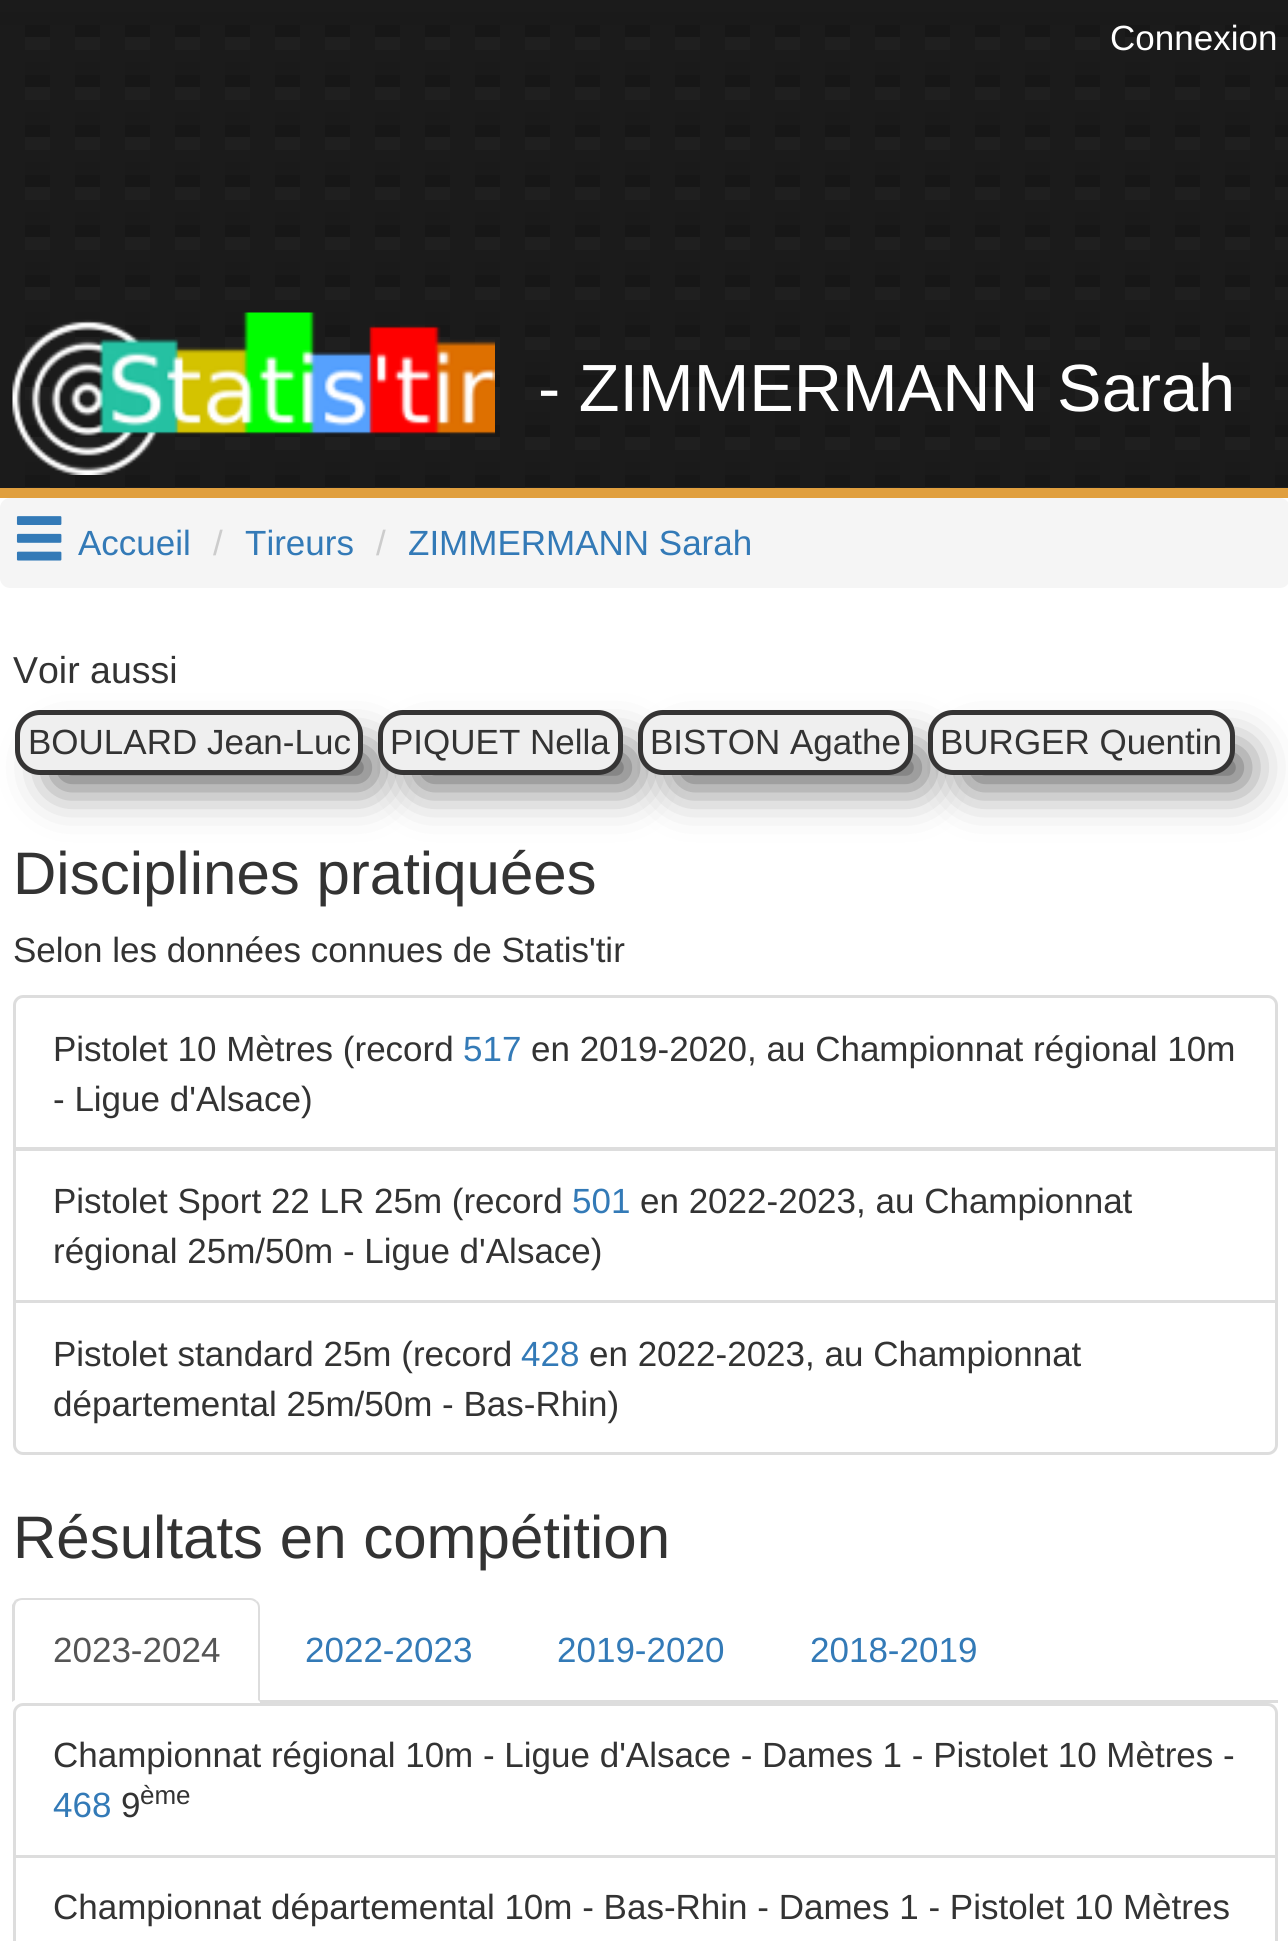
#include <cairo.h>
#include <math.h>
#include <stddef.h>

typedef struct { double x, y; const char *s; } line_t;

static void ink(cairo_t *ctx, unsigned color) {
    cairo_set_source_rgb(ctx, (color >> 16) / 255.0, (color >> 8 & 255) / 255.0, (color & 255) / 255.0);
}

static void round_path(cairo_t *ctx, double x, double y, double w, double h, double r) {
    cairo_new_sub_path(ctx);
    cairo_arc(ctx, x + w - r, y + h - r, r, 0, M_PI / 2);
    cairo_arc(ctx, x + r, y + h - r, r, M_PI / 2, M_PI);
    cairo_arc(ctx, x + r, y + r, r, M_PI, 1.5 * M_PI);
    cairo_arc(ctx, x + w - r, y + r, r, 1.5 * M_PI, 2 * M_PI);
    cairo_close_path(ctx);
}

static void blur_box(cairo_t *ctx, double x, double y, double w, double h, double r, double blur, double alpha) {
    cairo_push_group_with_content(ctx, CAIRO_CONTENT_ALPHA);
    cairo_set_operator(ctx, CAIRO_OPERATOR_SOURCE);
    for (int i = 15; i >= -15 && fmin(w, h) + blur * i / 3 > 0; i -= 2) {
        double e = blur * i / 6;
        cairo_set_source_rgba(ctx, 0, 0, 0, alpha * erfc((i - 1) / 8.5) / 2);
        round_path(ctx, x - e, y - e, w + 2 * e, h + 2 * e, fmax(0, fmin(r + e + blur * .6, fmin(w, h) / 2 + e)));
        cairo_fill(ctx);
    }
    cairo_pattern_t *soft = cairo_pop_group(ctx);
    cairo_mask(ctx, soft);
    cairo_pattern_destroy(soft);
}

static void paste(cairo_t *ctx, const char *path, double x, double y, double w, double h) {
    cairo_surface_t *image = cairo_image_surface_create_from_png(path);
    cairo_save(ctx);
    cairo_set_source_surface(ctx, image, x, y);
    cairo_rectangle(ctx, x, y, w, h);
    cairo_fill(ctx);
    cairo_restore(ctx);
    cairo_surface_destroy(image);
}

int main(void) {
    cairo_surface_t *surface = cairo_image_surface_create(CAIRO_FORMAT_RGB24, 1288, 1941);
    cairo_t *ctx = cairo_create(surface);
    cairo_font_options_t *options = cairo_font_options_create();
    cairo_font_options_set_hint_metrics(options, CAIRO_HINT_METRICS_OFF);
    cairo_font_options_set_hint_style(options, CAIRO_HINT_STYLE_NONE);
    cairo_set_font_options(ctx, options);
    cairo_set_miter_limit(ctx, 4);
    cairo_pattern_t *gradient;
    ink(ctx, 0xFFFFFF);
    cairo_paint(ctx);
    gradient = cairo_pattern_create_linear(25, 0, 25, 50);
    cairo_pattern_add_color_stop_rgba(gradient, 0.25, 0.106, 0.106, 0.106, 1);
    cairo_pattern_add_color_stop_rgba(gradient, 0.25, 0.102, 0.102, 0.102, 1);
    cairo_pattern_add_color_stop_rgba(gradient, 0.5, 0.102, 0.102, 0.102, 1);
    cairo_pattern_add_color_stop_rgba(gradient, 0.5, 0.09, 0.09, 0.09, 1);
    cairo_pattern_add_color_stop_rgba(gradient, 0.75, 0.09, 0.09, 0.09, 1);
    cairo_pattern_add_color_stop_rgba(gradient, 0.75, 0.122, 0.122, 0.122, 1);
    cairo_pattern_add_color_stop_rgba(gradient, 1, 0.122, 0.122, 0.122, 1);
    cairo_set_source(ctx, gradient);
    cairo_pattern_destroy(gradient);
    cairo_rectangle(ctx, 0, 0, 1288, 50);
    cairo_fill(ctx);
    gradient = cairo_pattern_create_linear(25, 50, 25, 100);
    cairo_pattern_add_color_stop_rgba(gradient, 0.25, 0.106, 0.106, 0.106, 1);
    cairo_pattern_add_color_stop_rgba(gradient, 0.25, 0.102, 0.102, 0.102, 1);
    cairo_pattern_add_color_stop_rgba(gradient, 0.5, 0.102, 0.102, 0.102, 1);
    cairo_pattern_add_color_stop_rgba(gradient, 0.5, 0.09, 0.09, 0.09, 1);
    cairo_pattern_add_color_stop_rgba(gradient, 0.75, 0.09, 0.09, 0.09, 1);
    cairo_pattern_add_color_stop_rgba(gradient, 0.75, 0.122, 0.122, 0.122, 1);
    cairo_pattern_add_color_stop_rgba(gradient, 1, 0.122, 0.122, 0.122, 1);
    cairo_set_source(ctx, gradient);
    cairo_pattern_destroy(gradient);
    cairo_rectangle(ctx, 25, 50, 1263, 50);
    cairo_fill(ctx);
    gradient = cairo_pattern_create_linear(25, 100, 25, 150);
    cairo_pattern_add_color_stop_rgba(gradient, 0.25, 0.106, 0.106, 0.106, 1);
    cairo_pattern_add_color_stop_rgba(gradient, 0.25, 0.102, 0.102, 0.102, 1);
    cairo_pattern_add_color_stop_rgba(gradient, 0.5, 0.102, 0.102, 0.102, 1);
    cairo_pattern_add_color_stop_rgba(gradient, 0.5, 0.09, 0.09, 0.09, 1);
    cairo_pattern_add_color_stop_rgba(gradient, 0.75, 0.09, 0.09, 0.09, 1);
    cairo_pattern_add_color_stop_rgba(gradient, 0.75, 0.122, 0.122, 0.122, 1);
    cairo_pattern_add_color_stop_rgba(gradient, 1, 0.122, 0.122, 0.122, 1);
    cairo_set_source(ctx, gradient);
    cairo_pattern_destroy(gradient);
    cairo_rectangle(ctx, 25, 100, 1263, 50);
    cairo_fill(ctx);
    gradient = cairo_pattern_create_linear(25, 150, 25, 200);
    cairo_pattern_add_color_stop_rgba(gradient, 0.25, 0.106, 0.106, 0.106, 1);
    cairo_pattern_add_color_stop_rgba(gradient, 0.25, 0.102, 0.102, 0.102, 1);
    cairo_pattern_add_color_stop_rgba(gradient, 0.5, 0.102, 0.102, 0.102, 1);
    cairo_pattern_add_color_stop_rgba(gradient, 0.5, 0.09, 0.09, 0.09, 1);
    cairo_pattern_add_color_stop_rgba(gradient, 0.75, 0.09, 0.09, 0.09, 1);
    cairo_pattern_add_color_stop_rgba(gradient, 0.75, 0.122, 0.122, 0.122, 1);
    cairo_pattern_add_color_stop_rgba(gradient, 1, 0.122, 0.122, 0.122, 1);
    cairo_set_source(ctx, gradient);
    cairo_pattern_destroy(gradient);
    cairo_rectangle(ctx, 25, 150, 1263, 50);
    cairo_fill(ctx);
    gradient = cairo_pattern_create_linear(25, 200, 25, 250);
    cairo_pattern_add_color_stop_rgba(gradient, 0.25, 0.106, 0.106, 0.106, 1);
    cairo_pattern_add_color_stop_rgba(gradient, 0.25, 0.102, 0.102, 0.102, 1);
    cairo_pattern_add_color_stop_rgba(gradient, 0.5, 0.102, 0.102, 0.102, 1);
    cairo_pattern_add_color_stop_rgba(gradient, 0.5, 0.09, 0.09, 0.09, 1);
    cairo_pattern_add_color_stop_rgba(gradient, 0.75, 0.09, 0.09, 0.09, 1);
    cairo_pattern_add_color_stop_rgba(gradient, 0.75, 0.122, 0.122, 0.122, 1);
    cairo_pattern_add_color_stop_rgba(gradient, 1, 0.122, 0.122, 0.122, 1);
    cairo_set_source(ctx, gradient);
    cairo_pattern_destroy(gradient);
    cairo_rectangle(ctx, 25, 200, 1263, 50);
    cairo_fill(ctx);
    gradient = cairo_pattern_create_linear(25, 250, 25, 300);
    cairo_pattern_add_color_stop_rgba(gradient, 0.25, 0.106, 0.106, 0.106, 1);
    cairo_pattern_add_color_stop_rgba(gradient, 0.25, 0.102, 0.102, 0.102, 1);
    cairo_pattern_add_color_stop_rgba(gradient, 0.5, 0.102, 0.102, 0.102, 1);
    cairo_pattern_add_color_stop_rgba(gradient, 0.5, 0.09, 0.09, 0.09, 1);
    cairo_pattern_add_color_stop_rgba(gradient, 0.75, 0.09, 0.09, 0.09, 1);
    cairo_pattern_add_color_stop_rgba(gradient, 0.75, 0.122, 0.122, 0.122, 1);
    cairo_pattern_add_color_stop_rgba(gradient, 1, 0.122, 0.122, 0.122, 1);
    cairo_set_source(ctx, gradient);
    cairo_pattern_destroy(gradient);
    cairo_rectangle(ctx, 25, 250, 1263, 50);
    cairo_fill(ctx);
    gradient = cairo_pattern_create_linear(25, 300, 25, 350);
    cairo_pattern_add_color_stop_rgba(gradient, 0.25, 0.106, 0.106, 0.106, 1);
    cairo_pattern_add_color_stop_rgba(gradient, 0.25, 0.102, 0.102, 0.102, 1);
    cairo_pattern_add_color_stop_rgba(gradient, 0.5, 0.102, 0.102, 0.102, 1);
    cairo_pattern_add_color_stop_rgba(gradient, 0.5, 0.09, 0.09, 0.09, 1);
    cairo_pattern_add_color_stop_rgba(gradient, 0.75, 0.09, 0.09, 0.09, 1);
    cairo_pattern_add_color_stop_rgba(gradient, 0.75, 0.122, 0.122, 0.122, 1);
    cairo_pattern_add_color_stop_rgba(gradient, 1, 0.122, 0.122, 0.122, 1);
    cairo_set_source(ctx, gradient);
    cairo_pattern_destroy(gradient);
    cairo_rectangle(ctx, 25, 300, 1263, 50);
    cairo_fill(ctx);
    gradient = cairo_pattern_create_linear(25, 350, 25, 400);
    cairo_pattern_add_color_stop_rgba(gradient, 0.25, 0.106, 0.106, 0.106, 1);
    cairo_pattern_add_color_stop_rgba(gradient, 0.25, 0.102, 0.102, 0.102, 1);
    cairo_pattern_add_color_stop_rgba(gradient, 0.5, 0.102, 0.102, 0.102, 1);
    cairo_pattern_add_color_stop_rgba(gradient, 0.5, 0.09, 0.09, 0.09, 1);
    cairo_pattern_add_color_stop_rgba(gradient, 0.75, 0.09, 0.09, 0.09, 1);
    cairo_pattern_add_color_stop_rgba(gradient, 0.75, 0.122, 0.122, 0.122, 1);
    cairo_pattern_add_color_stop_rgba(gradient, 1, 0.122, 0.122, 0.122, 1);
    cairo_set_source(ctx, gradient);
    cairo_pattern_destroy(gradient);
    cairo_rectangle(ctx, 25, 350, 1263, 50);
    cairo_fill(ctx);
    gradient = cairo_pattern_create_linear(25, 400, 25, 450);
    cairo_pattern_add_color_stop_rgba(gradient, 0.25, 0.106, 0.106, 0.106, 1);
    cairo_pattern_add_color_stop_rgba(gradient, 0.25, 0.102, 0.102, 0.102, 1);
    cairo_pattern_add_color_stop_rgba(gradient, 0.5, 0.102, 0.102, 0.102, 1);
    cairo_pattern_add_color_stop_rgba(gradient, 0.5, 0.09, 0.09, 0.09, 1);
    cairo_pattern_add_color_stop_rgba(gradient, 0.75, 0.09, 0.09, 0.09, 1);
    cairo_pattern_add_color_stop_rgba(gradient, 0.75, 0.122, 0.122, 0.122, 1);
    cairo_pattern_add_color_stop_rgba(gradient, 1, 0.122, 0.122, 0.122, 1);
    cairo_set_source(ctx, gradient);
    cairo_pattern_destroy(gradient);
    cairo_rectangle(ctx, 25, 400, 1263, 50);
    cairo_fill(ctx);
    gradient = cairo_pattern_create_linear(25, 450, 25, 500);
    cairo_pattern_add_color_stop_rgba(gradient, 0.25, 0.106, 0.106, 0.106, 1);
    cairo_pattern_add_color_stop_rgba(gradient, 0.25, 0.102, 0.102, 0.102, 1);
    cairo_pattern_add_color_stop_rgba(gradient, 0.5, 0.102, 0.102, 0.102, 1);
    cairo_pattern_add_color_stop_rgba(gradient, 0.5, 0.09, 0.09, 0.09, 1);
    cairo_pattern_add_color_stop_rgba(gradient, 0.75, 0.09, 0.09, 0.09, 1);
    cairo_pattern_add_color_stop_rgba(gradient, 0.75, 0.122, 0.122, 0.122, 1);
    cairo_pattern_add_color_stop_rgba(gradient, 1, 0.122, 0.122, 0.122, 1);
    cairo_set_source(ctx, gradient);
    cairo_pattern_destroy(gradient);
    cairo_rectangle(ctx, 25, 450, 1263, 38);
    cairo_fill(ctx);
    paste(ctx, "media/1.png", 0, 25, 1275, 463);
    cairo_select_font_face(ctx, "Liberation Sans", CAIRO_FONT_SLANT_NORMAL, CAIRO_FONT_WEIGHT_NORMAL);
    cairo_set_font_size(ctx, 35);
    ink(ctx, 0xFFFFFF);
    cairo_move_to(ctx, 1110, 50);
    cairo_show_text(ctx, "Connexion");
    ink(ctx, 0xE09F3E);
    cairo_rectangle(ctx, 0, 488, 1288, 10);
    cairo_fill(ctx);
    paste(ctx, "media/2.png", 12, 312, 483, 163);
    cairo_set_font_size(ctx, 66.75);
    ink(ctx, 0xFFFFFF);
    cairo_move_to(ctx, 538, 411);
    cairo_show_text(ctx, "- ZIMMERMANN Sarah");
    ink(ctx, 0xF5F5F5);
    round_path(ctx, 0, 498, 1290, 90, 10);
    cairo_fill(ctx);
    paste(ctx, "media/3.png", 16, 516, 46, 45);
    cairo_set_font_size(ctx, 35);
    ink(ctx, 0x337AB7);
    cairo_move_to(ctx, 78, 555);
    cairo_show_text(ctx, "Accueil");
    ink(ctx, 0xCCCCCC);
    cairo_move_to(ctx, 213, 555);
    cairo_show_text(ctx, "/");
    ink(ctx, 0x337AB7);
    cairo_move_to(ctx, 245, 555);
    cairo_show_text(ctx, "Tireurs");
    ink(ctx, 0xCCCCCC);
    cairo_move_to(ctx, 376, 555);
    cairo_show_text(ctx, "/");
    ink(ctx, 0x337AB7);
    cairo_move_to(ctx, 408, 555);
    cairo_show_text(ctx, "ZIMMERMANN Sarah");
    cairo_set_font_size(ctx, 37.5);
    ink(ctx, 0x333333);
    cairo_move_to(ctx, 13, 683);
    cairo_show_text(ctx, "Voir aussi");
    ink(ctx, 0x000000);
    blur_box(ctx, 60, 755, 308, 25, 5, 25, 0.75);
    ink(ctx, 0xEFEFEF);
    round_path(ctx, 17.5, 712.5, 343, 60, 22.5);
    cairo_fill_preserve(ctx);
    ink(ctx, 0x353434);
    cairo_set_line_width(ctx, 5);
    cairo_stroke(ctx);
    cairo_set_font_size(ctx, 35);
    ink(ctx, 0x333333);
    cairo_move_to(ctx, 28, 754);
    cairo_show_text(ctx, "BOULARD Jean-Luc");
    ink(ctx, 0x000000);
    blur_box(ctx, 423, 755, 205, 25, 5, 25, 0.75);
    ink(ctx, 0xEFEFEF);
    round_path(ctx, 380.5, 712.5, 240, 60, 22.5);
    cairo_fill_preserve(ctx);
    ink(ctx, 0x353434);
    cairo_stroke(ctx);
    ink(ctx, 0x333333);
    cairo_move_to(ctx, 390, 754);
    cairo_show_text(ctx, "PIQUET Nella");
    ink(ctx, 0x000000);
    blur_box(ctx, 683, 755, 235, 25, 5, 25, 0.75);
    ink(ctx, 0xEFEFEF);
    round_path(ctx, 640.5, 712.5, 270, 60, 22.5);
    cairo_fill_preserve(ctx);
    ink(ctx, 0x353434);
    cairo_stroke(ctx);
    ink(ctx, 0x333333);
    cairo_move_to(ctx, 650, 754);
    cairo_show_text(ctx, "BISTON Agathe");
    ink(ctx, 0x000000);
    blur_box(ctx, 973, 755, 267, 25, 5, 25, 0.75);
    ink(ctx, 0xEFEFEF);
    round_path(ctx, 930.5, 712.5, 302, 60, 22.5);
    cairo_fill_preserve(ctx);
    ink(ctx, 0x353434);
    cairo_stroke(ctx);
    ink(ctx, 0x333333);
    cairo_move_to(ctx, 940, 754);
    cairo_show_text(ctx, "BURGER Quentin");
    cairo_set_font_size(ctx, 60);
    cairo_move_to(ctx, 13, 894);
    cairo_show_text(ctx, "Disciplines pratiquées");
    cairo_set_font_size(ctx, 35);
    cairo_move_to(ctx, 13, 962);
    cairo_show_text(ctx, "Selon les données connues de Statis'tir");
    cairo_new_path(ctx);
    cairo_move_to(ctx, 23, 996.5);
    cairo_line_to(ctx, 1268, 996.5);
    cairo_curve_to(ctx, 1272.5, 996.5, 1276.5, 1000.5, 1276.5, 1005);
    cairo_line_to(ctx, 1276.5, 1148.5);
    cairo_line_to(ctx, 14.5, 1148.5);
    cairo_line_to(ctx, 14.5, 1005);
    cairo_curve_to(ctx, 14.5, 1000.5, 18.5, 996.5, 23, 996.5);
    cairo_close_path(ctx);
    ink(ctx, 0xDDDDDD);
    cairo_set_line_width(ctx, 3);
    cairo_stroke(ctx);
    ink(ctx, 0x333333);
    cairo_move_to(ctx, 53, 1061);
    cairo_show_text(ctx, "Pistolet 10 Mètres (record");
    ink(ctx, 0x337AB7);
    cairo_move_to(ctx, 463, 1061);
    cairo_show_text(ctx, "517");
    ink(ctx, 0x333333);
    cairo_move_to(ctx, 531, 1061);
    cairo_show_text(ctx, "en 2019-2020, au Championnat régional 10m");
    cairo_move_to(ctx, 53, 1111);
    cairo_show_text(ctx, "- Ligue d'Alsace)");
    cairo_rectangle(ctx, 14.5, 1149.5, 1262, 152);
    ink(ctx, 0xDDDDDD);
    cairo_stroke(ctx);
    ink(ctx, 0x333333);
    cairo_move_to(ctx, 53, 1213);
    cairo_show_text(ctx, "Pistolet Sport 22 LR 25m (record");
    ink(ctx, 0x337AB7);
    cairo_move_to(ctx, 572, 1213);
    cairo_show_text(ctx, "501");
    ink(ctx, 0x333333);
    cairo_move_to(ctx, 640, 1213);
    cairo_show_text(ctx, "en 2022-2023, au Championnat");
    cairo_move_to(ctx, 53, 1263);
    cairo_show_text(ctx, "régional 25m/50m - Ligue d'Alsace)");
    ink(ctx, 0xFFFFFF);
    cairo_new_path(ctx);
    cairo_move_to(ctx, 14.5, 1301.5);
    cairo_line_to(ctx, 1276.5, 1301.5);
    cairo_line_to(ctx, 1276.5, 1445);
    cairo_curve_to(ctx, 1276.5, 1449.5, 1272.5, 1453.5, 1268, 1453.5);
    cairo_line_to(ctx, 23, 1453.5);
    cairo_curve_to(ctx, 18.5, 1453.5, 14.5, 1449.5, 14.5, 1445);
    cairo_close_path(ctx);
    cairo_fill_preserve(ctx);
    ink(ctx, 0xDDDDDD);
    cairo_stroke(ctx);
    ink(ctx, 0x333333);
    cairo_move_to(ctx, 53, 1366);
    cairo_show_text(ctx, "Pistolet standard 25m (record");
    ink(ctx, 0x337AB7);
    cairo_move_to(ctx, 521, 1366);
    cairo_show_text(ctx, "428");
    ink(ctx, 0x333333);
    cairo_move_to(ctx, 589, 1366);
    cairo_show_text(ctx, "en 2022-2023, au Championnat");
    cairo_move_to(ctx, 53, 1416);
    cairo_show_text(ctx, "départemental 25m/50m - Bas-Rhin)");
    cairo_set_font_size(ctx, 60);
    cairo_move_to(ctx, 13, 1558);
    cairo_show_text(ctx, "Résultats en compétition");
    ink(ctx, 0xDDDDDD);
    cairo_rectangle(ctx, 260, 1700, 1018, 3);
    cairo_fill(ctx);
    cairo_new_path(ctx);
    cairo_move_to(ctx, 22, 1598);
    cairo_curve_to(ctx, 20, 1598, 17, 1599, 15, 1600);
    cairo_line_to(ctx, 17, 1602);
    cairo_curve_to(ctx, 18, 1601, 20, 1600, 22, 1600);
    cairo_line_to(ctx, 250, 1600);
    cairo_curve_to(ctx, 252, 1600, 254, 1601, 255, 1602);
    cairo_line_to(ctx, 257, 1601);
    cairo_curve_to(ctx, 255, 1599, 253, 1598, 250, 1598);
    cairo_close_path(ctx);
    cairo_fill(ctx);
    cairo_new_path(ctx);
    cairo_move_to(ctx, 257, 1601);
    cairo_curve_to(ctx, 259, 1602, 260, 1605, 260, 1608);
    cairo_line_to(ctx, 260, 1702);
    cairo_line_to(ctx, 258, 1700);
    cairo_line_to(ctx, 258, 1608);
    cairo_curve_to(ctx, 258, 1605, 257, 1603, 255, 1602);
    cairo_close_path(ctx);
    cairo_fill(ctx);
    cairo_new_path(ctx);
    cairo_move_to(ctx, 12, 1605);
    cairo_curve_to(ctx, 13, 1603, 14, 1602, 15, 1600);
    cairo_line_to(ctx, 17, 1602);
    cairo_curve_to(ctx, 16, 1603, 15, 1605, 15, 1608);
    cairo_line_to(ctx, 15, 1700);
    cairo_line_to(ctx, 12, 1702);
    cairo_close_path(ctx);
    cairo_fill(ctx);
    cairo_set_font_size(ctx, 35);
    ink(ctx, 0x555555);
    cairo_move_to(ctx, 53, 1662);
    cairo_show_text(ctx, "2023-2024");
    ink(ctx, 0x337AB7);
    {
        static const line_t items[] = {
            {305, 1662, "2022-2023"},
            {557, 1662, "2019-2020"},
            {810, 1662, "2018-2019"},
        };
        for (size_t i = 0; i < sizeof items / sizeof *items; i++) {
            cairo_move_to(ctx, items[i].x, items[i].y);
            cairo_show_text(ctx, items[i].s);
        }
    }
    cairo_new_path(ctx);
    cairo_move_to(ctx, 23, 1704.5);
    cairo_line_to(ctx, 1268, 1704.5);
    cairo_curve_to(ctx, 1272.5, 1704.5, 1276.5, 1708.5, 1276.5, 1713);
    cairo_line_to(ctx, 1276.5, 1856.5);
    cairo_line_to(ctx, 14.5, 1856.5);
    cairo_line_to(ctx, 14.5, 1713);
    cairo_curve_to(ctx, 14.5, 1708.5, 18.5, 1704.5, 23, 1704.5);
    cairo_close_path(ctx);
    ink(ctx, 0xDDDDDD);
    cairo_stroke(ctx);
    ink(ctx, 0x333333);
    cairo_move_to(ctx, 53, 1767);
    cairo_show_text(ctx, "Championnat régional 10m - Ligue d'Alsace - Dames 1 - Pistolet 10 Mètres -");
    ink(ctx, 0x337AB7);
    cairo_move_to(ctx, 53, 1817);
    cairo_show_text(ctx, "468");
    ink(ctx, 0x333333);
    cairo_move_to(ctx, 121, 1817);
    cairo_show_text(ctx, "9");
    cairo_set_font_size(ctx, 26);
    cairo_move_to(ctx, 140, 1804);
    cairo_show_text(ctx, "ème");
    cairo_rectangle(ctx, 14.5, 1856.5, 1262, 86);
    ink(ctx, 0xDDDDDD);
    cairo_stroke(ctx);
    cairo_set_font_size(ctx, 35);
    ink(ctx, 0x333333);
    cairo_move_to(ctx, 53, 1919);
    cairo_show_text(ctx, "Championnat départemental 10m - Bas-Rhin - Dames 1 - Pistolet 10 Mètres");
    cairo_surface_write_to_png(surface, "image.png");
    cairo_font_options_destroy(options);
    cairo_destroy(ctx);
    cairo_surface_destroy(surface);
    return 0;
}
